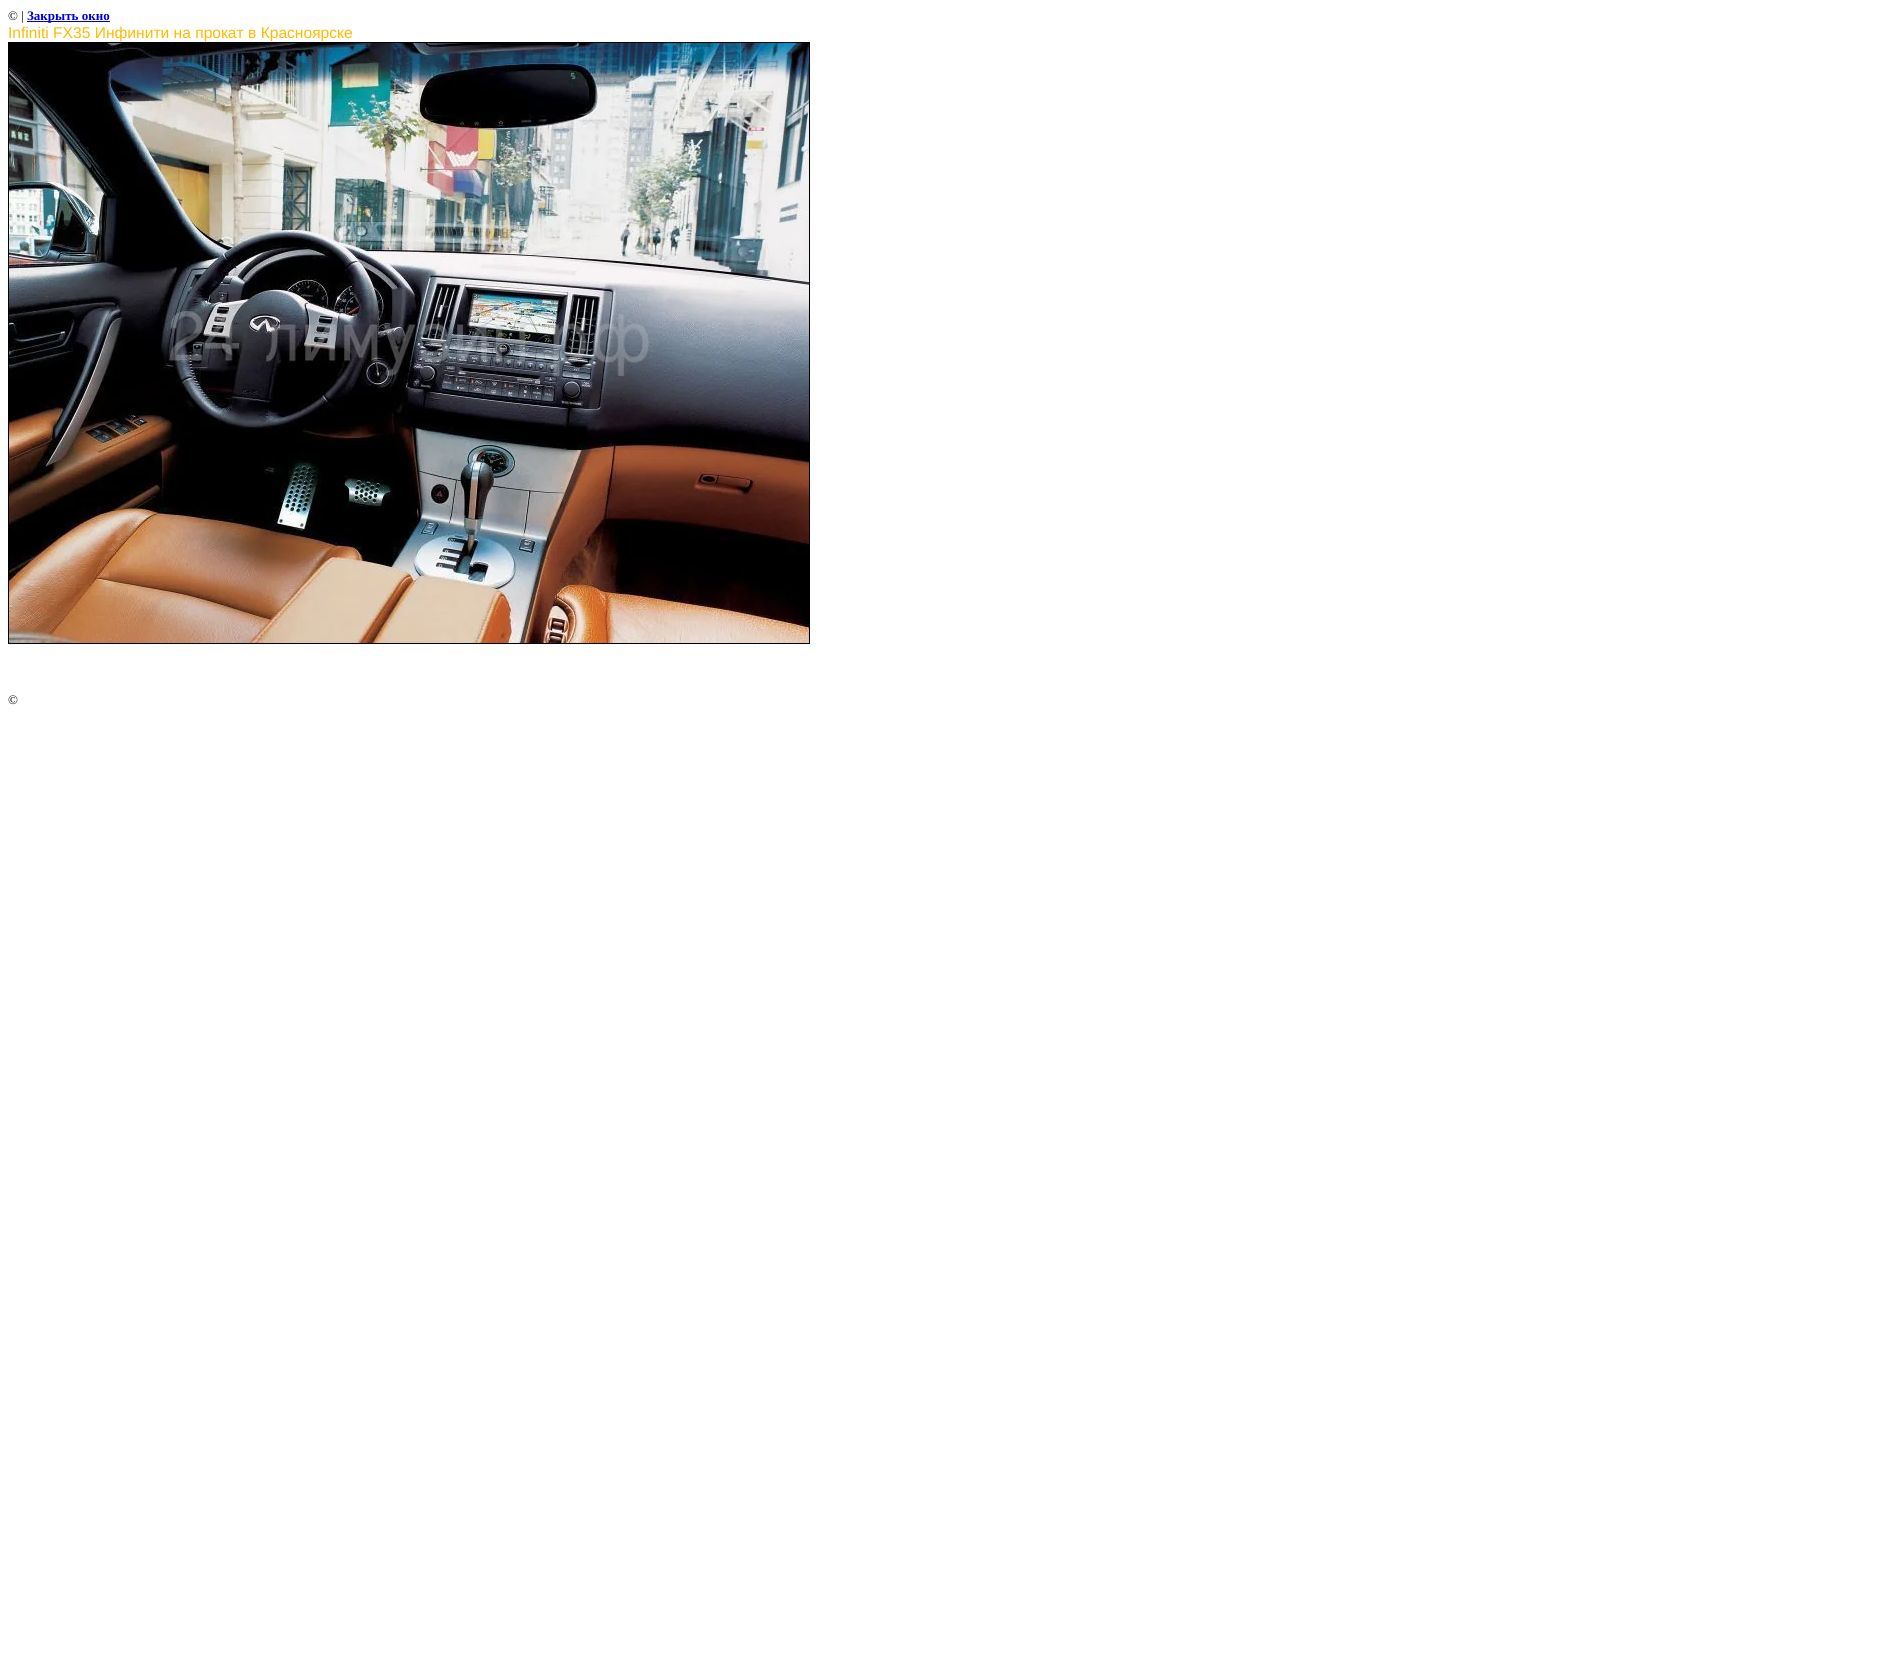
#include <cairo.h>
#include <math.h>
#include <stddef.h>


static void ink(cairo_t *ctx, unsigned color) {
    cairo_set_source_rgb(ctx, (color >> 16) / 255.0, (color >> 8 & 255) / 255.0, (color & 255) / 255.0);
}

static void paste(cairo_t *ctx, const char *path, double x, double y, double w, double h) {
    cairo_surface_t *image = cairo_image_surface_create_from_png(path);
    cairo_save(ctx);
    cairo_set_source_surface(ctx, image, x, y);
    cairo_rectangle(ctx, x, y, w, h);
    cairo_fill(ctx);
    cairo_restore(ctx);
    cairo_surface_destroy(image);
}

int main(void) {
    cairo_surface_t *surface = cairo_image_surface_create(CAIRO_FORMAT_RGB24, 1896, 1659);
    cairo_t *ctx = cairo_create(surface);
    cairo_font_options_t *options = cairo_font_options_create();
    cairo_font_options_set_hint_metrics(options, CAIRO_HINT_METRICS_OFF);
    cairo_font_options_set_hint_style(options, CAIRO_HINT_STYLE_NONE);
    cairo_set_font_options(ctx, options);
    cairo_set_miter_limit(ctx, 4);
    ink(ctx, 0xFFFFFF);
    cairo_paint(ctx);
    cairo_select_font_face(ctx, "Liberation Serif", CAIRO_FONT_SLANT_NORMAL, CAIRO_FONT_WEIGHT_NORMAL);
    cairo_set_font_size(ctx, 13);
    ink(ctx, 0x000000);
    cairo_move_to(ctx, 8, 20);
    cairo_show_text(ctx, "© |");
    ink(ctx, 0x0000CC);
    cairo_rectangle(ctx, 27, 21, 83, 1);
    cairo_fill(ctx);
    cairo_select_font_face(ctx, "Liberation Serif", CAIRO_FONT_SLANT_NORMAL, CAIRO_FONT_WEIGHT_BOLD);
    cairo_move_to(ctx, 27, 20);
    cairo_show_text(ctx, "Закрыть окно");
    cairo_select_font_face(ctx, "Liberation Sans", CAIRO_FONT_SLANT_NORMAL, CAIRO_FONT_WEIGHT_NORMAL);
    cairo_set_font_size(ctx, 15.6);
    ink(ctx, 0xFFBA00);
    cairo_move_to(ctx, 8, 38);
    cairo_show_text(ctx, "Infiniti FX35 Инфинити на прокат в Красноярске");
    cairo_rectangle(ctx, 8.5, 42.5, 801, 601);
    ink(ctx, 0x000000);
    cairo_set_line_width(ctx, 1);
    cairo_stroke(ctx);
    paste(ctx, "media/1.png", 9, 43, 800, 600);
    cairo_select_font_face(ctx, "Liberation Serif", CAIRO_FONT_SLANT_NORMAL, CAIRO_FONT_WEIGHT_NORMAL);
    cairo_set_font_size(ctx, 13);
    cairo_move_to(ctx, 8, 704);
    cairo_show_text(ctx, "©");
    cairo_surface_write_to_png(surface, "image.png");
    cairo_font_options_destroy(options);
    cairo_destroy(ctx);
    cairo_surface_destroy(surface);
    return 0;
}
